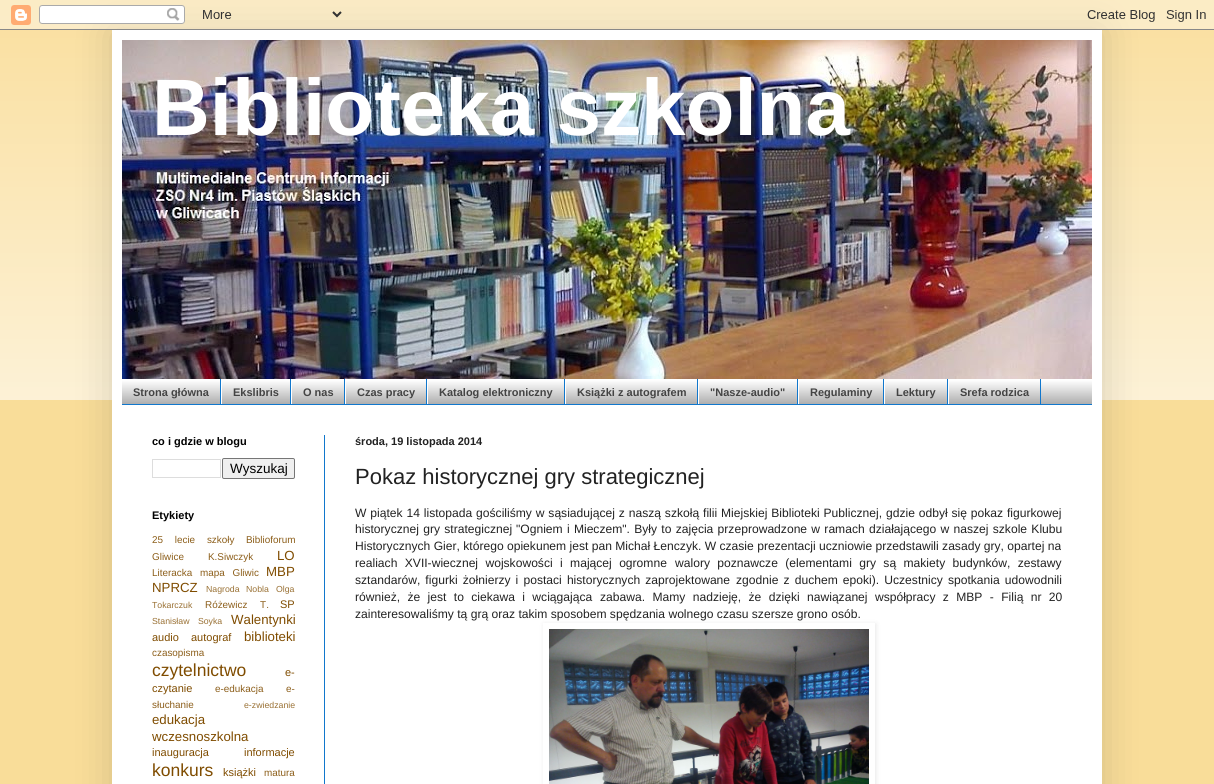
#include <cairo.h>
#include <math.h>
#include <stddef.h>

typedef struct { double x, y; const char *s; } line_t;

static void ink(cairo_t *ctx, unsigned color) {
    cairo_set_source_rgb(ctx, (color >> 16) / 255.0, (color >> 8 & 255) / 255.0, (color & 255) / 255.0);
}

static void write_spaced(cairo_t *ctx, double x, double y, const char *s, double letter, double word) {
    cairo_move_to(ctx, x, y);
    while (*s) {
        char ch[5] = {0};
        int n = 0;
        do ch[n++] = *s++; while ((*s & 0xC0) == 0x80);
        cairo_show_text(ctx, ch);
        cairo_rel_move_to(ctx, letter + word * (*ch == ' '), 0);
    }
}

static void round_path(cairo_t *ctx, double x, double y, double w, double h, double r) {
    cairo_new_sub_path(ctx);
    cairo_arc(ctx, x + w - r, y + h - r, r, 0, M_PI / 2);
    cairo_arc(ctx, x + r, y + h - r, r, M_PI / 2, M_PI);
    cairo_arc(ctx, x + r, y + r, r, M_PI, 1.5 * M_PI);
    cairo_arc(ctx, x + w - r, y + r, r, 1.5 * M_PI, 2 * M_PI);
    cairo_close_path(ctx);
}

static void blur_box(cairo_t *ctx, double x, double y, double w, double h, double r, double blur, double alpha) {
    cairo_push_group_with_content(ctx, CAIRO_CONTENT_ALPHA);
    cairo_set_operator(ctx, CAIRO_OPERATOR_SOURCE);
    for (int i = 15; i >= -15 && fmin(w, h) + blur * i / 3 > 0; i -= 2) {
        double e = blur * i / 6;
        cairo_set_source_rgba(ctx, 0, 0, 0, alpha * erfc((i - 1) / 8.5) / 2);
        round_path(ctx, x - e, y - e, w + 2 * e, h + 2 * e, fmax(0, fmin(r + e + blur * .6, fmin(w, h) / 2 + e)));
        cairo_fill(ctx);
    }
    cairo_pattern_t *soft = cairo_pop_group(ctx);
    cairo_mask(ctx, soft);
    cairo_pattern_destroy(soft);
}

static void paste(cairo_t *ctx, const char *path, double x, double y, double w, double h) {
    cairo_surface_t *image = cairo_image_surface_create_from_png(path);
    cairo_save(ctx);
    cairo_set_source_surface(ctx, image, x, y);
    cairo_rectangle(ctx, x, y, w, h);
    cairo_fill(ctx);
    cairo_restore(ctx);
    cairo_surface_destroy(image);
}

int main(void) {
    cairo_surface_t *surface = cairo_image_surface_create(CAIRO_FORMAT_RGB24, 1214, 784);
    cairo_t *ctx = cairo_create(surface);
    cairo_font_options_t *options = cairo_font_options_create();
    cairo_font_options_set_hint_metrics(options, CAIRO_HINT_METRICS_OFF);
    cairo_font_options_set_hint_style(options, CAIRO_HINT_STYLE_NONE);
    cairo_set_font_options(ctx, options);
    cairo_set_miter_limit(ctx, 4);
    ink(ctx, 0xF9DD99);
    cairo_paint(ctx);
    paste(ctx, "media/1.png", 0, 0, 1214, 400);
    ink(ctx, 0x000000);
    blur_box(ctx, 112, 30, 990, 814, 0, 20, 0.15);
    paste(ctx, "media/2.png", 0, 0, 1214, 30);
    ink(ctx, 0xFFFFFF);
    cairo_rectangle(ctx, 112, 30, 990, 754);
    cairo_fill(ctx);
    paste(ctx, "media/3.png", 122, 40, 970, 339);
    cairo_select_font_face(ctx, "Liberation Sans", CAIRO_FONT_SLANT_NORMAL, CAIRO_FONT_WEIGHT_BOLD);
    cairo_set_font_size(ctx, 80);
    cairo_move_to(ctx, 152, 135);
    cairo_show_text(ctx, "Biblioteka szkolna");
    ink(ctx, 0x7F7F7F);
    cairo_rectangle(ctx, 122, 380, 970, 24);
    cairo_fill(ctx);
    paste(ctx, "media/4.png", 122, 379, 970, 25);
    ink(ctx, 0x1177CC);
    cairo_rectangle(ctx, 122, 404, 970, 1);
    cairo_fill(ctx);
    cairo_rectangle(ctx, 220, 379, 1, 25);
    cairo_fill(ctx);
    cairo_set_font_size(ctx, 11);
    ink(ctx, 0x444444);
    cairo_move_to(ctx, 133, 396);
    cairo_show_text(ctx, "Strona główna");
    ink(ctx, 0x1177CC);
    cairo_rectangle(ctx, 290, 379, 1, 25);
    cairo_fill(ctx);
    ink(ctx, 0xFFFFFF);
    cairo_rectangle(ctx, 221, 379, 1, 25);
    cairo_fill(ctx);
    ink(ctx, 0x444444);
    cairo_move_to(ctx, 233, 396);
    cairo_show_text(ctx, "Ekslibris");
    ink(ctx, 0x1177CC);
    cairo_rectangle(ctx, 344, 379, 1, 25);
    cairo_fill(ctx);
    ink(ctx, 0xFFFFFF);
    cairo_rectangle(ctx, 291, 379, 1, 25);
    cairo_fill(ctx);
    ink(ctx, 0x444444);
    cairo_move_to(ctx, 303, 396);
    cairo_show_text(ctx, "O nas");
    ink(ctx, 0x1177CC);
    cairo_rectangle(ctx, 426, 379, 1, 25);
    cairo_fill(ctx);
    ink(ctx, 0xFFFFFF);
    cairo_rectangle(ctx, 345, 379, 1, 25);
    cairo_fill(ctx);
    ink(ctx, 0x444444);
    cairo_move_to(ctx, 357, 396);
    cairo_show_text(ctx, "Czas pracy");
    ink(ctx, 0x1177CC);
    cairo_rectangle(ctx, 564, 379, 1, 25);
    cairo_fill(ctx);
    ink(ctx, 0xFFFFFF);
    cairo_rectangle(ctx, 427, 379, 1, 25);
    cairo_fill(ctx);
    ink(ctx, 0x444444);
    cairo_move_to(ctx, 439, 396);
    cairo_show_text(ctx, "Katalog elektroniczny");
    ink(ctx, 0x1177CC);
    cairo_rectangle(ctx, 697, 379, 1, 25);
    cairo_fill(ctx);
    ink(ctx, 0xFFFFFF);
    cairo_rectangle(ctx, 565, 379, 1, 25);
    cairo_fill(ctx);
    ink(ctx, 0x444444);
    cairo_move_to(ctx, 577, 396);
    cairo_show_text(ctx, "Książki z autografem");
    ink(ctx, 0x1177CC);
    cairo_rectangle(ctx, 797, 379, 1, 25);
    cairo_fill(ctx);
    ink(ctx, 0xFFFFFF);
    cairo_rectangle(ctx, 698, 379, 1, 25);
    cairo_fill(ctx);
    ink(ctx, 0x444444);
    cairo_move_to(ctx, 710, 396);
    cairo_show_text(ctx, "\"Nasze-audio\"");
    ink(ctx, 0x1177CC);
    cairo_rectangle(ctx, 883, 379, 1, 25);
    cairo_fill(ctx);
    ink(ctx, 0xFFFFFF);
    cairo_rectangle(ctx, 798, 379, 1, 25);
    cairo_fill(ctx);
    ink(ctx, 0x444444);
    cairo_move_to(ctx, 810, 396);
    cairo_show_text(ctx, "Regulaminy");
    ink(ctx, 0x1177CC);
    cairo_rectangle(ctx, 947, 379, 1, 25);
    cairo_fill(ctx);
    ink(ctx, 0xFFFFFF);
    cairo_rectangle(ctx, 884, 379, 1, 25);
    cairo_fill(ctx);
    ink(ctx, 0x444444);
    cairo_move_to(ctx, 896, 396);
    cairo_show_text(ctx, "Lektury");
    ink(ctx, 0x1177CC);
    cairo_rectangle(ctx, 1040, 379, 1, 25);
    cairo_fill(ctx);
    ink(ctx, 0xFFFFFF);
    cairo_rectangle(ctx, 948, 379, 1, 25);
    cairo_fill(ctx);
    ink(ctx, 0x444444);
    cairo_move_to(ctx, 960, 396);
    cairo_show_text(ctx, "Srefa rodzica");
    ink(ctx, 0x1177CC);
    cairo_rectangle(ctx, 324, 435, 1, 349);
    cairo_fill(ctx);
    ink(ctx, 0x000000);
    cairo_move_to(ctx, 152, 445);
    cairo_show_text(ctx, "co i gdzie w blogu");
    cairo_rectangle(ctx, 152.5, 459.5, 68, 18);
    ink(ctx, 0xDDDDDD);
    cairo_set_line_width(ctx, 1);
    cairo_stroke(ctx);
    ink(ctx, 0xEFEFEF);
    round_path(ctx, 222.5, 458.5, 72, 20, 1.5);
    cairo_fill_preserve(ctx);
    ink(ctx, 0x767676);
    cairo_stroke(ctx);
    cairo_select_font_face(ctx, "Liberation Sans", CAIRO_FONT_SLANT_NORMAL, CAIRO_FONT_WEIGHT_NORMAL);
    cairo_set_font_size(ctx, 13.5);
    ink(ctx, 0x000000);
    cairo_move_to(ctx, 230, 473);
    cairo_show_text(ctx, "Wyszukaj");
    cairo_select_font_face(ctx, "Liberation Sans", CAIRO_FONT_SLANT_NORMAL, CAIRO_FONT_WEIGHT_BOLD);
    cairo_set_font_size(ctx, 11);
    cairo_move_to(ctx, 152, 519);
    cairo_show_text(ctx, "Etykiety");
    cairo_select_font_face(ctx, "Liberation Sans", CAIRO_FONT_SLANT_NORMAL, CAIRO_FONT_WEIGHT_NORMAL);
    cairo_set_font_size(ctx, 9.9);
    ink(ctx, 0x8C5E1A);
    write_spaced(ctx, 152, 543, "25 lecie szkoły", 0, 9);
    {
        static const line_t items[] = {
            {246, 543, "Biblioforum"},
            {152, 560, "Gliwice"},
            {208, 560, "K.Siwczyk"},
        };
        for (size_t i = 0; i < sizeof items / sizeof *items; i++) {
            cairo_move_to(ctx, items[i].x, items[i].y);
            cairo_show_text(ctx, items[i].s);
        }
    }
    cairo_set_font_size(ctx, 13.25);
    ink(ctx, 0x7F4C00);
    cairo_move_to(ctx, 277, 560);
    cairo_show_text(ctx, "LO");
    cairo_set_font_size(ctx, 9.9);
    ink(ctx, 0x8C5E1A);
    write_spaced(ctx, 152, 576, "Literacka mapa Gliwic", 0, 5);
    cairo_set_font_size(ctx, 13.25);
    ink(ctx, 0x7F4C00);
    cairo_move_to(ctx, 266, 576);
    cairo_show_text(ctx, "MBP");
    cairo_move_to(ctx, 152, 592);
    cairo_show_text(ctx, "NPRCZ");
    cairo_set_font_size(ctx, 8.75);
    ink(ctx, 0x997033);
    write_spaced(ctx, 206, 592, "Nagroda Nobla", 0, 4);
    cairo_move_to(ctx, 276, 592);
    cairo_show_text(ctx, "Olga");
    cairo_move_to(ctx, 152, 608);
    cairo_show_text(ctx, "Tokarczuk");
    cairo_set_font_size(ctx, 9.9);
    ink(ctx, 0x8C5E1A);
    write_spaced(ctx, 205, 608, "Różewicz T.", 0, 10);
    cairo_set_font_size(ctx, 11);
    ink(ctx, 0x7F4C00);
    cairo_move_to(ctx, 280, 608);
    cairo_show_text(ctx, "SP");
    cairo_set_font_size(ctx, 8.75);
    ink(ctx, 0x997033);
    write_spaced(ctx, 152, 624, "Stanisław Soyka", 0, 6);
    cairo_set_font_size(ctx, 13.25);
    ink(ctx, 0x7F4C00);
    cairo_move_to(ctx, 231, 624);
    cairo_show_text(ctx, "Walentynki");
    cairo_set_font_size(ctx, 11);
    cairo_move_to(ctx, 152, 641);
    cairo_show_text(ctx, "audio");
    cairo_move_to(ctx, 191, 641);
    cairo_show_text(ctx, "autograf");
    cairo_set_font_size(ctx, 13.25);
    cairo_move_to(ctx, 244, 641);
    cairo_show_text(ctx, "biblioteki");
    cairo_set_font_size(ctx, 9.9);
    ink(ctx, 0x8C5E1A);
    cairo_move_to(ctx, 152, 656);
    cairo_show_text(ctx, "czasopisma");
    cairo_set_font_size(ctx, 17.5);
    ink(ctx, 0x7F4C00);
    cairo_move_to(ctx, 152, 676);
    cairo_show_text(ctx, "czytelnictwo");
    cairo_set_font_size(ctx, 11);
    cairo_move_to(ctx, 285, 676);
    cairo_show_text(ctx, "e-");
    cairo_move_to(ctx, 152, 692);
    cairo_show_text(ctx, "czytanie");
    cairo_set_font_size(ctx, 9.9);
    ink(ctx, 0x8C5E1A);
    {
        static const line_t items[] = {
            {215, 692, "e-edukacja"},
            {286, 692, "e-"},
            {152, 708, "słuchanie"},
        };
        for (size_t i = 0; i < sizeof items / sizeof *items; i++) {
            cairo_move_to(ctx, items[i].x, items[i].y);
            cairo_show_text(ctx, items[i].s);
        }
    }
    cairo_set_font_size(ctx, 8.75);
    ink(ctx, 0x997033);
    cairo_move_to(ctx, 244, 708);
    cairo_show_text(ctx, "e-zwiedzanie");
    cairo_set_font_size(ctx, 13.25);
    ink(ctx, 0x7F4C00);
    cairo_move_to(ctx, 152, 724);
    cairo_show_text(ctx, "edukacja");
    cairo_move_to(ctx, 152, 741);
    cairo_show_text(ctx, "wczesnoszkolna");
    cairo_set_font_size(ctx, 11);
    cairo_move_to(ctx, 152, 756);
    cairo_show_text(ctx, "inauguracja");
    cairo_move_to(ctx, 244, 756);
    cairo_show_text(ctx, "informacje");
    cairo_set_font_size(ctx, 17.5);
    cairo_move_to(ctx, 152, 776);
    cairo_show_text(ctx, "konkurs");
    cairo_set_font_size(ctx, 11);
    cairo_move_to(ctx, 223, 776);
    cairo_show_text(ctx, "książki");
    cairo_set_font_size(ctx, 9.9);
    ink(ctx, 0x8C5E1A);
    cairo_move_to(ctx, 264, 776);
    cairo_show_text(ctx, "matura");
    cairo_select_font_face(ctx, "Liberation Sans", CAIRO_FONT_SLANT_NORMAL, CAIRO_FONT_WEIGHT_BOLD);
    cairo_set_font_size(ctx, 11);
    ink(ctx, 0x222222);
    cairo_move_to(ctx, 355, 445);
    cairo_show_text(ctx, "środa, 19 listopada 2014");
    cairo_select_font_face(ctx, "Liberation Sans", CAIRO_FONT_SLANT_NORMAL, CAIRO_FONT_WEIGHT_NORMAL);
    cairo_set_font_size(ctx, 22);
    cairo_move_to(ctx, 355, 484);
    cairo_show_text(ctx, "Pokaz historycznej gry strategicznej");
    cairo_set_font_size(ctx, 12.1);
    write_spaced(ctx, 355, 517, "W piątek 14 listopada gościliśmy w sąsiadującej z naszą szkołą filii", 0, 0.5);
    write_spaced(ctx, 721, 517, "Miejskiej Biblioteki Publicznej, gdzie odbył się pokaz figurkowej", 0, 0.5);
    write_spaced(ctx, 355, 533, "historycznej gry strategicznej", 0, 0.9);
    write_spaced(ctx, 516, 533, "\"Ogniem i Mieczem\". Były to zajęcia przeprowadzone w ramach działającego w naszej szkole Klubu", 0, 0.9);
    cairo_move_to(ctx, 355, 550);
    cairo_show_text(ctx, "Historycznych Gier, którego opiekunem jest pan Michał Łenczyk. W czasie prezentacji uczniowie przedstawili zasady gry, opartej na");
    write_spaced(ctx, 355, 567, "realiach XVII-wiecznej wojskowości i mającej ogromne", 0, 4);
    write_spaced(ctx, 675, 567, "walory poznawcze (elementami gry są makiety budynków, zestawy", 0, 4);
    write_spaced(ctx, 355, 584, "sztandarów, figurki żołnierzy i postaci historycznych zaprojektowane", 0, 1.75);
    write_spaced(ctx, 736, 584, "zgodnie z duchem epoki). Uczestnicy spotkania udowodnili", 0, 1.75);
    write_spaced(ctx, 355, 601, "również, że jest to ciekawa i wciągająca", 0, 4);
    write_spaced(ctx, 600, 601, "zabawa. Mamy nadzieję, że dzięki nawiązanej współpracy z MBP - Filią nr 20", 0, 4);
    cairo_move_to(ctx, 355, 618);
    cairo_show_text(ctx, "zainteresowaliśmy tą grą oraz takim sposobem spędzania wolnego czasu szersze grono osób.");
    cairo_save(ctx);
    cairo_set_fill_rule(ctx, CAIRO_FILL_RULE_EVEN_ODD);
    cairo_new_path(ctx);
    cairo_move_to(ctx, 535, 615);
    cairo_line_to(ctx, 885, 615);
    cairo_line_to(ctx, 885, 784);
    cairo_line_to(ctx, 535, 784);
    cairo_close_path(ctx);
    cairo_move_to(ctx, 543, 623);
    cairo_line_to(ctx, 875, 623);
    cairo_line_to(ctx, 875, 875);
    cairo_line_to(ctx, 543, 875);
    cairo_close_path(ctx);
    cairo_clip(ctx);
    ink(ctx, 0x000000);
    blur_box(ctx, 544, 624, 332, 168, 0, 2.5, 0.1);
    cairo_restore(ctx);
    paste(ctx, "media/5.png", 549, 629, 320, 155);
    cairo_surface_write_to_png(surface, "image.png");
    cairo_font_options_destroy(options);
    cairo_destroy(ctx);
    cairo_surface_destroy(surface);
    return 0;
}
